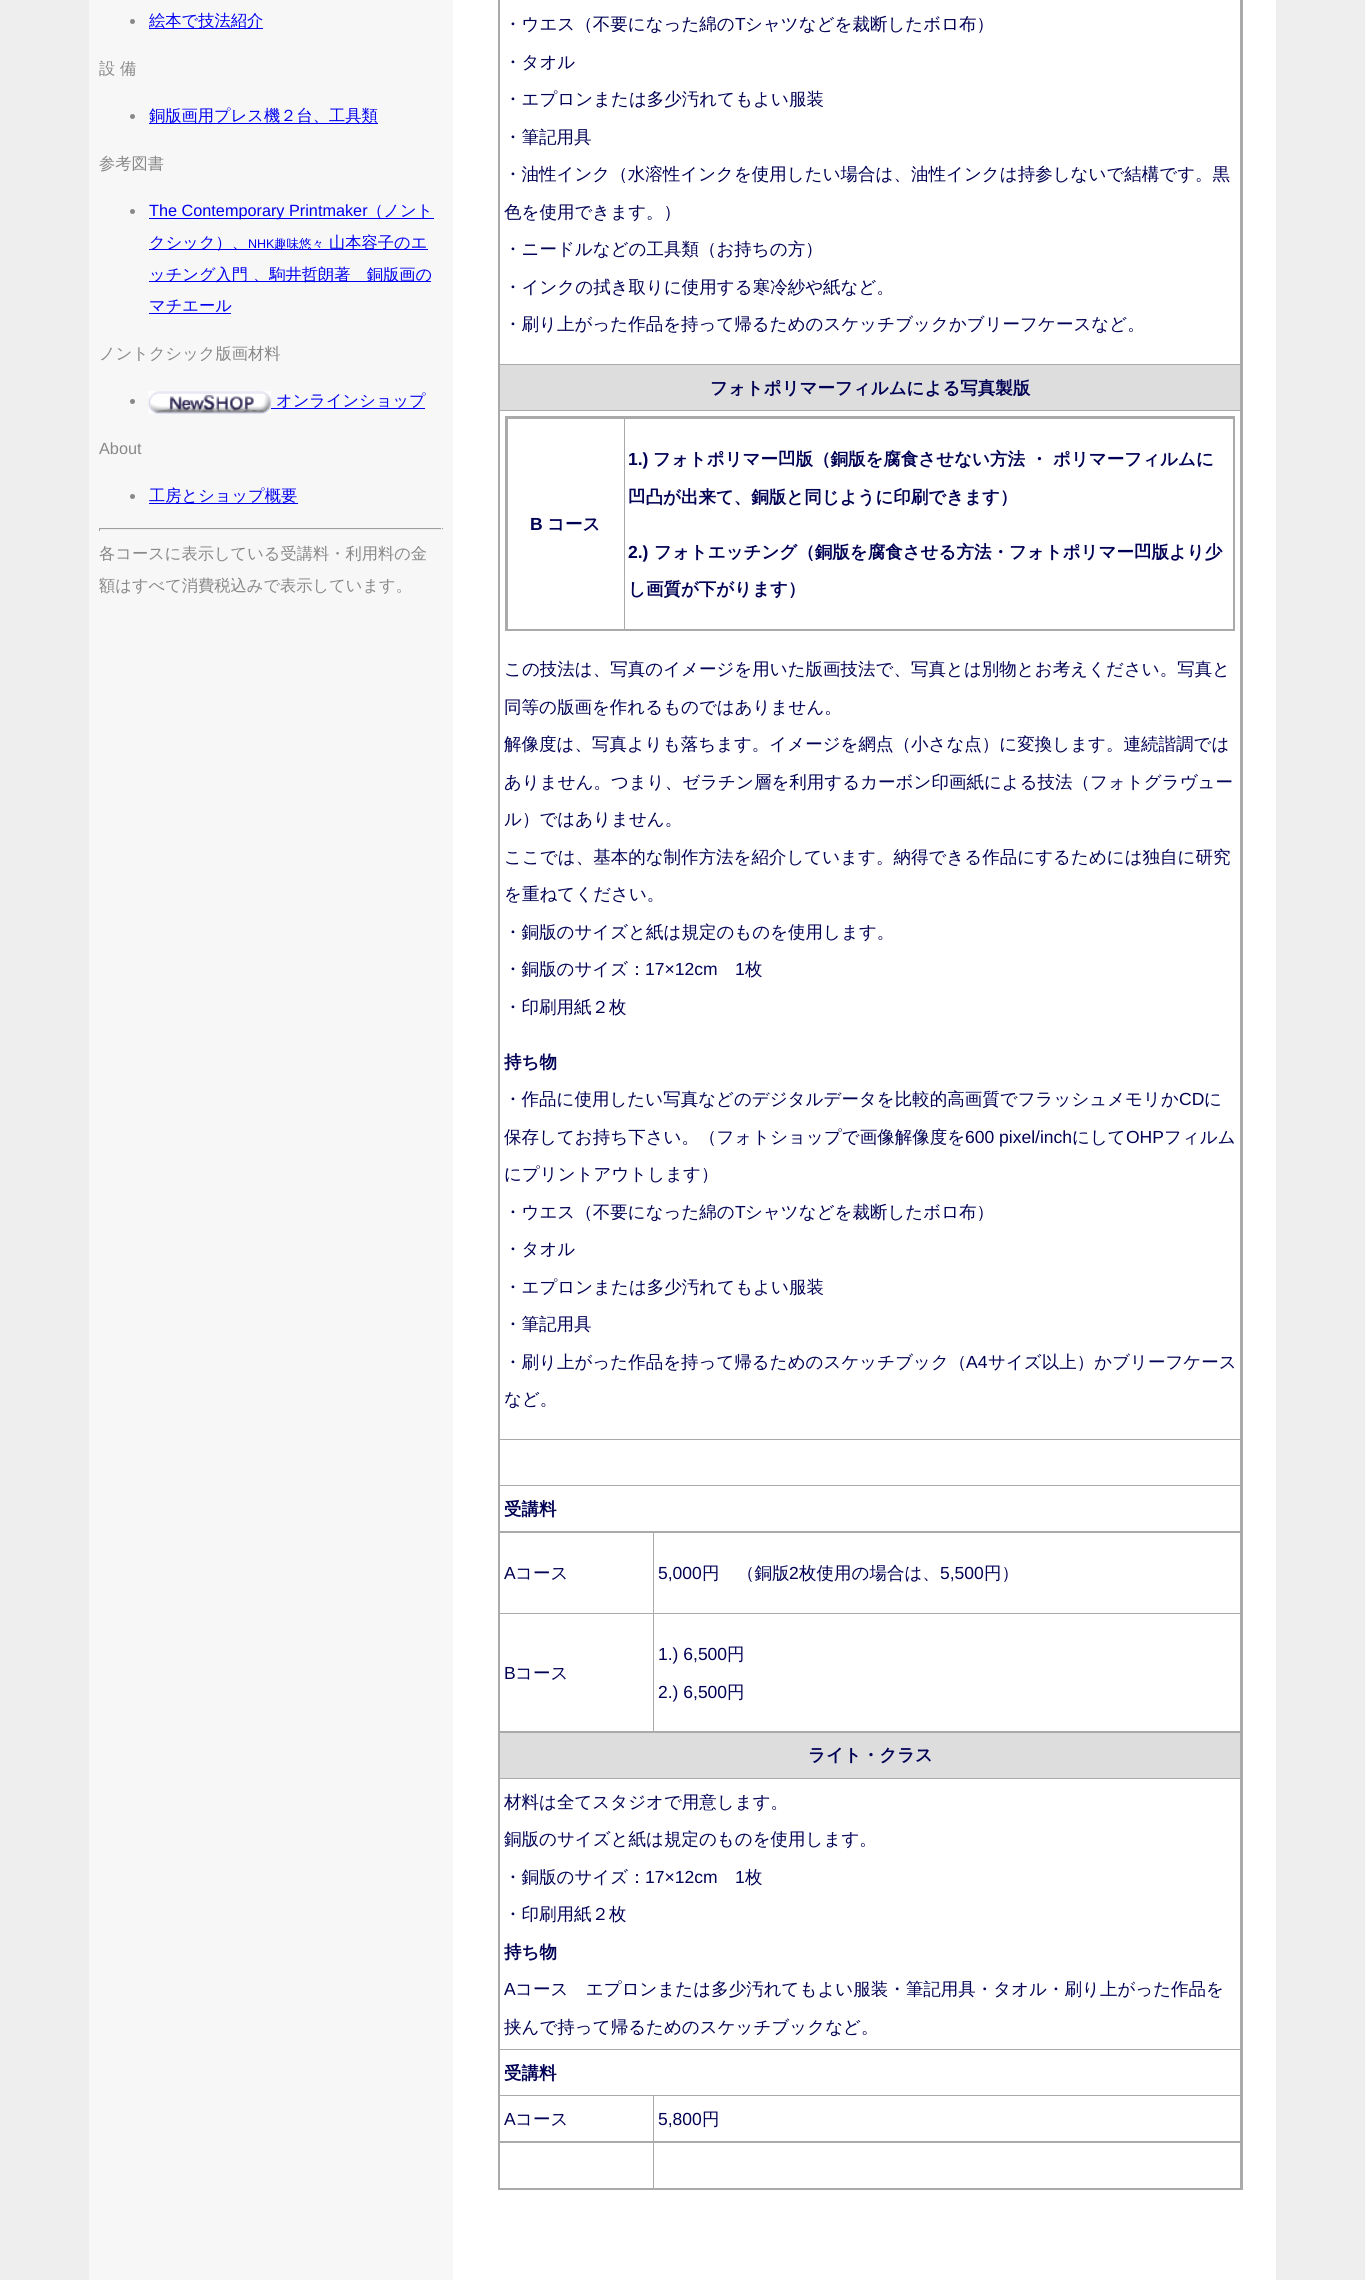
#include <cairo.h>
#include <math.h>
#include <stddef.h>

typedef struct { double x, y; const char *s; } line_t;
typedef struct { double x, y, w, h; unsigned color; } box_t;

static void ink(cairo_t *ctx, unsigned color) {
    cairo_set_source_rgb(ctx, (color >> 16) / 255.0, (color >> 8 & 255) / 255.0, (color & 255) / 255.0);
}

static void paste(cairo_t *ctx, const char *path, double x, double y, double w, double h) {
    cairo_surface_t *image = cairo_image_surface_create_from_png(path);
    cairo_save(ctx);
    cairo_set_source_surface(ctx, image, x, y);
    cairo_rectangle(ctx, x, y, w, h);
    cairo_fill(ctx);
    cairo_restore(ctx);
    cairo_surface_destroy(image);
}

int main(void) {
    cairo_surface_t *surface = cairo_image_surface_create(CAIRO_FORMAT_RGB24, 1365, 2280);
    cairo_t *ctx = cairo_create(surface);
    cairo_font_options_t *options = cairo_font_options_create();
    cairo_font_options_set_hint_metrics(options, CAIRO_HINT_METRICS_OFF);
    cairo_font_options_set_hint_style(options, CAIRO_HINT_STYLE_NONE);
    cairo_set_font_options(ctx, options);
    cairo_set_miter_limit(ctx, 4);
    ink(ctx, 0xEEEEEE);
    cairo_paint(ctx);
    ink(ctx, 0xFFFFFF);
    cairo_rectangle(ctx, 453, 0, 823, 2280);
    cairo_fill(ctx);
    ink(ctx, 0xF7F7F7);
    cairo_rectangle(ctx, 89, 0, 364, 2280);
    cairo_fill(ctx);
    ink(ctx, 0x888888);
    cairo_arc(ctx, 132.5, 21.5, 2.5, 0, 2 * M_PI);
    cairo_fill(ctx);
    ink(ctx, 0x0000EE);
    cairo_rectangle(ctx, 149, 28, 114, 1);
    cairo_fill(ctx);
    cairo_select_font_face(ctx, "WenQuanYi Zen Hei Medium", CAIRO_FONT_SLANT_NORMAL, CAIRO_FONT_WEIGHT_NORMAL);
    cairo_set_font_size(ctx, 16.25);
    cairo_move_to(ctx, 149, 26);
    cairo_show_text(ctx, "絵本で技法紹介");
    ink(ctx, 0x888888);
    cairo_move_to(ctx, 99, 74);
    cairo_show_text(ctx, "設 備");
    cairo_new_path(ctx);
    cairo_arc(ctx, 132.5, 116.5, 2.5, 0, 2 * M_PI);
    cairo_fill(ctx);
    ink(ctx, 0x0000EE);
    cairo_rectangle(ctx, 149, 123, 229, 1);
    cairo_fill(ctx);
    cairo_move_to(ctx, 149, 121);
    cairo_show_text(ctx, "銅版画用プレス機２台、工具類");
    ink(ctx, 0x888888);
    cairo_move_to(ctx, 99, 169);
    cairo_show_text(ctx, "参考図書");
    cairo_new_path(ctx);
    cairo_arc(ctx, 132.5, 211.5, 2.5, 0, 2 * M_PI);
    cairo_fill(ctx);
    ink(ctx, 0x0000EE);
    cairo_rectangle(ctx, 149, 218, 285, 1);
    cairo_fill(ctx);
    cairo_select_font_face(ctx, "Liberation Sans", CAIRO_FONT_SLANT_NORMAL, CAIRO_FONT_WEIGHT_NORMAL);
    cairo_move_to(ctx, 149, 216);
    cairo_show_text(ctx, "The Contemporary Printmaker");
    cairo_select_font_face(ctx, "WenQuanYi Zen Hei Medium", CAIRO_FONT_SLANT_NORMAL, CAIRO_FONT_WEIGHT_NORMAL);
    cairo_move_to(ctx, 367, 216);
    cairo_show_text(ctx, "（ノント");
    cairo_rectangle(ctx, 149, 249, 279, 1);
    cairo_fill(ctx);
    cairo_move_to(ctx, 149, 248);
    cairo_show_text(ctx, "クシック）、");
    cairo_select_font_face(ctx, "Liberation Sans", CAIRO_FONT_SLANT_NORMAL, CAIRO_FONT_WEIGHT_NORMAL);
    cairo_set_font_size(ctx, 12.5);
    cairo_move_to(ctx, 248, 248);
    cairo_show_text(ctx, "NHK");
    cairo_select_font_face(ctx, "WenQuanYi Zen Hei Medium", CAIRO_FONT_SLANT_NORMAL, CAIRO_FONT_WEIGHT_NORMAL);
    cairo_move_to(ctx, 274, 248);
    cairo_show_text(ctx, "趣味悠々");
    cairo_set_font_size(ctx, 16.25);
    cairo_move_to(ctx, 329, 248);
    cairo_show_text(ctx, "山本容子のエ");
    cairo_rectangle(ctx, 149, 281, 282, 1);
    cairo_fill(ctx);
    cairo_move_to(ctx, 149, 280);
    cairo_show_text(ctx, "ッチング入門 、駒井哲朗著　銅版画の");
    cairo_move_to(ctx, 149, 311);
    cairo_show_text(ctx, "マチエール");
    cairo_rectangle(ctx, 149, 313, 82, 1);
    cairo_fill(ctx);
    ink(ctx, 0x888888);
    cairo_move_to(ctx, 99, 359);
    cairo_show_text(ctx, "ノントクシック版画材料");
    cairo_new_path(ctx);
    cairo_arc(ctx, 132.5, 401.5, 2.5, 0, 2 * M_PI);
    cairo_fill(ctx);
    paste(ctx, "media/1.png", 148, 391, 124, 23);
    ink(ctx, 0x0000EE);
    cairo_rectangle(ctx, 271, 408, 154, 1);
    cairo_fill(ctx);
    cairo_move_to(ctx, 276, 406);
    cairo_show_text(ctx, "オンラインショップ");
    cairo_select_font_face(ctx, "Liberation Sans", CAIRO_FONT_SLANT_NORMAL, CAIRO_FONT_WEIGHT_NORMAL);
    ink(ctx, 0x888888);
    cairo_move_to(ctx, 99, 454);
    cairo_show_text(ctx, "About");
    cairo_new_path(ctx);
    cairo_arc(ctx, 132.5, 496.5, 2.5, 0, 2 * M_PI);
    cairo_fill(ctx);
    ink(ctx, 0x0000EE);
    cairo_rectangle(ctx, 149, 503, 149, 1);
    cairo_fill(ctx);
    cairo_select_font_face(ctx, "WenQuanYi Zen Hei Medium", CAIRO_FONT_SLANT_NORMAL, CAIRO_FONT_WEIGHT_NORMAL);
    cairo_move_to(ctx, 149, 501);
    cairo_show_text(ctx, "工房とショップ概要");
    {
        static const box_t items[] = {
            {99, 528, 344, 1, 0x9F9F9F},
            {441, 528, 1, 3, 0xEEEEEE},
            {99, 529, 344, 1, 0xEEEEEE},
            {99, 528, 1, 3, 0x9F9F9F},
        };
        for (size_t i = 0; i < sizeof items / sizeof *items; i++) {
            ink(ctx, items[i].color);
            cairo_rectangle(ctx, items[i].x, items[i].y, items[i].w, items[i].h);
            cairo_fill(ctx);
        }
    }
    ink(ctx, 0x888888);
    cairo_move_to(ctx, 99, 559);
    cairo_show_text(ctx, "各コースに表示している受講料・利用料の金");
    cairo_move_to(ctx, 99, 591);
    cairo_show_text(ctx, "額はすべて消費税込みで表示しています。");
    ink(ctx, 0xAAAAAA);
    cairo_rectangle(ctx, 498, 0, 745, 2190);
    cairo_fill(ctx);
    ink(ctx, 0xFFFFFF);
    cairo_rectangle(ctx, 500, 0, 740, 364);
    cairo_fill(ctx);
    cairo_set_font_size(ctx, 17.5);
    ink(ctx, 0x000055);
    cairo_move_to(ctx, 504, 30);
    cairo_show_text(ctx, "・ウエス（不要になった綿の");
    cairo_select_font_face(ctx, "Liberation Sans", CAIRO_FONT_SLANT_NORMAL, CAIRO_FONT_WEIGHT_NORMAL);
    cairo_move_to(ctx, 735, 30);
    cairo_show_text(ctx, "T");
    cairo_select_font_face(ctx, "WenQuanYi Zen Hei Medium", CAIRO_FONT_SLANT_NORMAL, CAIRO_FONT_WEIGHT_NORMAL);
    {
        static const line_t items[] = {
            {745, 30, "シャツなどを裁断したボロ布）"},
            {504, 68, "・タオル"},
            {504, 105, "・エプロンまたは多少汚れてもよい服装"},
            {504, 143, "・筆記用具"},
            {504, 180, "・油性インク（水溶性インクを使用したい場合は、油性インクは持参しないで結構です。黒"},
            {504, 218, "色を使用できます。）"},
            {504, 255, "・ニードルなどの工具類（お持ちの方）"},
            {504, 293, "・インクの拭き取りに使用する寒冷紗や紙など。"},
            {504, 330, "・刷り上がった作品を持って帰るためのスケッチブックかブリーフケースなど。"},
        };
        for (size_t i = 0; i < sizeof items / sizeof *items; i++) {
            cairo_move_to(ctx, items[i].x, items[i].y);
            cairo_show_text(ctx, items[i].s);
        }
    }
    ink(ctx, 0xDDDDDD);
    cairo_rectangle(ctx, 500, 365, 740, 45);
    cairo_fill(ctx);
    cairo_select_font_face(ctx, "WenQuanYi Zen Hei", CAIRO_FONT_SLANT_NORMAL, CAIRO_FONT_WEIGHT_BOLD);
    ink(ctx, 0x000055);
    cairo_move_to(ctx, 710, 394);
    cairo_show_text(ctx, "フォトポリマーフィルムによる写真製版");
    {
        static const box_t items[] = {
            {500, 411, 740, 1028, 0xFFFFFF},
            {505, 416, 730, 215, 0xAAAAAA},
            {508, 419, 116, 210, 0xFFFFFF},
        };
        for (size_t i = 0; i < sizeof items / sizeof *items; i++) {
            ink(ctx, items[i].color);
            cairo_rectangle(ctx, items[i].x, items[i].y, items[i].w, items[i].h);
            cairo_fill(ctx);
        }
    }
    cairo_select_font_face(ctx, "Liberation Sans", CAIRO_FONT_SLANT_NORMAL, CAIRO_FONT_WEIGHT_BOLD);
    ink(ctx, 0x000055);
    cairo_move_to(ctx, 530, 530);
    cairo_show_text(ctx, "B");
    cairo_select_font_face(ctx, "WenQuanYi Zen Hei", CAIRO_FONT_SLANT_NORMAL, CAIRO_FONT_WEIGHT_BOLD);
    cairo_move_to(ctx, 547, 530);
    cairo_show_text(ctx, "コース");
    ink(ctx, 0xFFFFFF);
    cairo_rectangle(ctx, 625, 419, 608, 210);
    cairo_fill(ctx);
    cairo_select_font_face(ctx, "Liberation Sans", CAIRO_FONT_SLANT_NORMAL, CAIRO_FONT_WEIGHT_BOLD);
    ink(ctx, 0x000055);
    cairo_move_to(ctx, 628, 465);
    cairo_show_text(ctx, "1.)");
    cairo_select_font_face(ctx, "WenQuanYi Zen Hei", CAIRO_FONT_SLANT_NORMAL, CAIRO_FONT_WEIGHT_BOLD);
    cairo_move_to(ctx, 653, 465);
    cairo_show_text(ctx, "フォトポリマー凹版（銅版を腐食させない方法 ・ ポリマーフィルムに");
    cairo_move_to(ctx, 628, 503);
    cairo_show_text(ctx, "凹凸が出来て、銅版と同じように印刷できます）");
    cairo_select_font_face(ctx, "Liberation Sans", CAIRO_FONT_SLANT_NORMAL, CAIRO_FONT_WEIGHT_BOLD);
    cairo_move_to(ctx, 628, 558);
    cairo_show_text(ctx, "2.)");
    cairo_select_font_face(ctx, "WenQuanYi Zen Hei", CAIRO_FONT_SLANT_NORMAL, CAIRO_FONT_WEIGHT_BOLD);
    cairo_move_to(ctx, 654, 558);
    cairo_show_text(ctx, "フォトエッチング（銅版を腐食させる方法・フォトポリマー凹版より少");
    cairo_move_to(ctx, 628, 595);
    cairo_show_text(ctx, "し画質が下がります）");
    cairo_select_font_face(ctx, "WenQuanYi Zen Hei Medium", CAIRO_FONT_SLANT_NORMAL, CAIRO_FONT_WEIGHT_NORMAL);
    {
        static const line_t items[] = {
            {504, 675, "この技法は、写真のイメージを用いた版画技法で、写真とは別物とお考えください。写真と"},
            {504, 713, "同等の版画を作れるものではありません。"},
            {504, 750, "解像度は、写真よりも落ちます。イメージを網点（小さな点）に変換します。連続諧調では"},
            {504, 788, "ありません。つまり、ゼラチン層を利用するカーボン印画紙による技法（フォトグラヴュー"},
            {504, 825, "ル）ではありません。"},
            {504, 863, "ここでは、基本的な制作方法を紹介しています。納得できる作品にするためには独自に研究"},
            {504, 900, "を重ねてください。"},
            {504, 938, "・銅版のサイズと紙は規定のものを使用します。"},
            {504, 975, "・銅版のサイズ："},
        };
        for (size_t i = 0; i < sizeof items / sizeof *items; i++) {
            cairo_move_to(ctx, items[i].x, items[i].y);
            cairo_show_text(ctx, items[i].s);
        }
    }
    cairo_select_font_face(ctx, "Liberation Sans", CAIRO_FONT_SLANT_NORMAL, CAIRO_FONT_WEIGHT_NORMAL);
    cairo_move_to(ctx, 645, 975);
    cairo_show_text(ctx, "17×12cm");
    cairo_move_to(ctx, 735, 975);
    cairo_show_text(ctx, "1");
    cairo_select_font_face(ctx, "WenQuanYi Zen Hei Medium", CAIRO_FONT_SLANT_NORMAL, CAIRO_FONT_WEIGHT_NORMAL);
    cairo_move_to(ctx, 745, 975);
    cairo_show_text(ctx, "枚");
    cairo_move_to(ctx, 504, 1013);
    cairo_show_text(ctx, "・印刷用紙２枚");
    cairo_select_font_face(ctx, "WenQuanYi Zen Hei", CAIRO_FONT_SLANT_NORMAL, CAIRO_FONT_WEIGHT_BOLD);
    cairo_move_to(ctx, 504, 1068);
    cairo_show_text(ctx, "持ち物");
    cairo_select_font_face(ctx, "WenQuanYi Zen Hei Medium", CAIRO_FONT_SLANT_NORMAL, CAIRO_FONT_WEIGHT_NORMAL);
    cairo_move_to(ctx, 504, 1105);
    cairo_show_text(ctx, "・作品に使用したい写真などのデジタルデータを比較的高画質でフラッシュメモリか");
    cairo_select_font_face(ctx, "Liberation Sans", CAIRO_FONT_SLANT_NORMAL, CAIRO_FONT_WEIGHT_NORMAL);
    cairo_move_to(ctx, 1179, 1105);
    cairo_show_text(ctx, "CD");
    cairo_select_font_face(ctx, "WenQuanYi Zen Hei Medium", CAIRO_FONT_SLANT_NORMAL, CAIRO_FONT_WEIGHT_NORMAL);
    cairo_move_to(ctx, 1204, 1105);
    cairo_show_text(ctx, "に");
    cairo_move_to(ctx, 504, 1143);
    cairo_show_text(ctx, "保存してお持ち下さい。（フォトショップで画像解像度を");
    cairo_select_font_face(ctx, "Liberation Sans", CAIRO_FONT_SLANT_NORMAL, CAIRO_FONT_WEIGHT_NORMAL);
    cairo_move_to(ctx, 965, 1143);
    cairo_show_text(ctx, "600 pixel/inch");
    cairo_select_font_face(ctx, "WenQuanYi Zen Hei Medium", CAIRO_FONT_SLANT_NORMAL, CAIRO_FONT_WEIGHT_NORMAL);
    cairo_move_to(ctx, 1072, 1143);
    cairo_show_text(ctx, "にして");
    cairo_select_font_face(ctx, "Liberation Sans", CAIRO_FONT_SLANT_NORMAL, CAIRO_FONT_WEIGHT_NORMAL);
    cairo_move_to(ctx, 1126, 1143);
    cairo_show_text(ctx, "OHP");
    cairo_select_font_face(ctx, "WenQuanYi Zen Hei Medium", CAIRO_FONT_SLANT_NORMAL, CAIRO_FONT_WEIGHT_NORMAL);
    {
        static const line_t items[] = {
            {1164, 1143, "フィルム"},
            {504, 1180, "にプリントアウトします）"},
            {504, 1218, "・ウエス（不要になった綿の"},
        };
        for (size_t i = 0; i < sizeof items / sizeof *items; i++) {
            cairo_move_to(ctx, items[i].x, items[i].y);
            cairo_show_text(ctx, items[i].s);
        }
    }
    cairo_select_font_face(ctx, "Liberation Sans", CAIRO_FONT_SLANT_NORMAL, CAIRO_FONT_WEIGHT_NORMAL);
    cairo_move_to(ctx, 735, 1218);
    cairo_show_text(ctx, "T");
    cairo_select_font_face(ctx, "WenQuanYi Zen Hei Medium", CAIRO_FONT_SLANT_NORMAL, CAIRO_FONT_WEIGHT_NORMAL);
    {
        static const line_t items[] = {
            {745, 1218, "シャツなどを裁断したボロ布）"},
            {504, 1255, "・タオル"},
            {504, 1293, "・エプロンまたは多少汚れてもよい服装"},
            {504, 1330, "・筆記用具"},
            {504, 1368, "・刷り上がった作品を持って帰るためのスケッチブック（"},
        };
        for (size_t i = 0; i < sizeof items / sizeof *items; i++) {
            cairo_move_to(ctx, items[i].x, items[i].y);
            cairo_show_text(ctx, items[i].s);
        }
    }
    cairo_select_font_face(ctx, "Liberation Sans", CAIRO_FONT_SLANT_NORMAL, CAIRO_FONT_WEIGHT_NORMAL);
    cairo_move_to(ctx, 966, 1368);
    cairo_show_text(ctx, "A4");
    cairo_select_font_face(ctx, "WenQuanYi Zen Hei Medium", CAIRO_FONT_SLANT_NORMAL, CAIRO_FONT_WEIGHT_NORMAL);
    cairo_move_to(ctx, 988, 1368);
    cairo_show_text(ctx, "サイズ以上）かブリーフケース");
    cairo_move_to(ctx, 504, 1405);
    cairo_show_text(ctx, "など。");
    ink(ctx, 0xFFFFFF);
    cairo_rectangle(ctx, 500, 1440, 740, 45);
    cairo_fill(ctx);
    cairo_rectangle(ctx, 500, 1486, 740, 45);
    cairo_fill(ctx);
    cairo_select_font_face(ctx, "WenQuanYi Zen Hei", CAIRO_FONT_SLANT_NORMAL, CAIRO_FONT_WEIGHT_BOLD);
    ink(ctx, 0x000055);
    cairo_move_to(ctx, 504, 1515);
    cairo_show_text(ctx, "受講料");
    ink(ctx, 0xFFFFFF);
    cairo_rectangle(ctx, 500, 1533, 153, 80);
    cairo_fill(ctx);
    cairo_select_font_face(ctx, "Liberation Sans", CAIRO_FONT_SLANT_NORMAL, CAIRO_FONT_WEIGHT_NORMAL);
    ink(ctx, 0x000055);
    cairo_move_to(ctx, 504, 1579);
    cairo_show_text(ctx, "A");
    cairo_select_font_face(ctx, "WenQuanYi Zen Hei Medium", CAIRO_FONT_SLANT_NORMAL, CAIRO_FONT_WEIGHT_NORMAL);
    cairo_move_to(ctx, 515, 1579);
    cairo_show_text(ctx, "コース");
    ink(ctx, 0xFFFFFF);
    cairo_rectangle(ctx, 654, 1533, 586, 80);
    cairo_fill(ctx);
    cairo_select_font_face(ctx, "Liberation Sans", CAIRO_FONT_SLANT_NORMAL, CAIRO_FONT_WEIGHT_NORMAL);
    ink(ctx, 0x000055);
    cairo_move_to(ctx, 658, 1579);
    cairo_show_text(ctx, "5,000");
    cairo_select_font_face(ctx, "WenQuanYi Zen Hei Medium", CAIRO_FONT_SLANT_NORMAL, CAIRO_FONT_WEIGHT_NORMAL);
    cairo_move_to(ctx, 702, 1579);
    cairo_show_text(ctx, "円　（銅版");
    cairo_select_font_face(ctx, "Liberation Sans", CAIRO_FONT_SLANT_NORMAL, CAIRO_FONT_WEIGHT_NORMAL);
    cairo_move_to(ctx, 789, 1579);
    cairo_show_text(ctx, "2");
    cairo_select_font_face(ctx, "WenQuanYi Zen Hei Medium", CAIRO_FONT_SLANT_NORMAL, CAIRO_FONT_WEIGHT_NORMAL);
    cairo_move_to(ctx, 799, 1579);
    cairo_show_text(ctx, "枚使用の場合は、");
    cairo_select_font_face(ctx, "Liberation Sans", CAIRO_FONT_SLANT_NORMAL, CAIRO_FONT_WEIGHT_NORMAL);
    cairo_move_to(ctx, 940, 1579);
    cairo_show_text(ctx, "5,500");
    cairo_select_font_face(ctx, "WenQuanYi Zen Hei Medium", CAIRO_FONT_SLANT_NORMAL, CAIRO_FONT_WEIGHT_NORMAL);
    cairo_move_to(ctx, 984, 1579);
    cairo_show_text(ctx, "円）");
    ink(ctx, 0xFFFFFF);
    cairo_rectangle(ctx, 500, 1614, 153, 117);
    cairo_fill(ctx);
    cairo_select_font_face(ctx, "Liberation Sans", CAIRO_FONT_SLANT_NORMAL, CAIRO_FONT_WEIGHT_NORMAL);
    ink(ctx, 0x000055);
    cairo_move_to(ctx, 504, 1679);
    cairo_show_text(ctx, "B");
    cairo_select_font_face(ctx, "WenQuanYi Zen Hei Medium", CAIRO_FONT_SLANT_NORMAL, CAIRO_FONT_WEIGHT_NORMAL);
    cairo_move_to(ctx, 515, 1679);
    cairo_show_text(ctx, "コース");
    ink(ctx, 0xFFFFFF);
    cairo_rectangle(ctx, 654, 1614, 586, 117);
    cairo_fill(ctx);
    cairo_select_font_face(ctx, "Liberation Sans", CAIRO_FONT_SLANT_NORMAL, CAIRO_FONT_WEIGHT_NORMAL);
    ink(ctx, 0x000055);
    cairo_move_to(ctx, 658, 1660);
    cairo_show_text(ctx, "1.) 6,500");
    cairo_select_font_face(ctx, "WenQuanYi Zen Hei Medium", CAIRO_FONT_SLANT_NORMAL, CAIRO_FONT_WEIGHT_NORMAL);
    cairo_move_to(ctx, 727, 1660);
    cairo_show_text(ctx, "円");
    cairo_select_font_face(ctx, "Liberation Sans", CAIRO_FONT_SLANT_NORMAL, CAIRO_FONT_WEIGHT_NORMAL);
    cairo_move_to(ctx, 658, 1698);
    cairo_show_text(ctx, "2.) 6,500");
    cairo_select_font_face(ctx, "WenQuanYi Zen Hei Medium", CAIRO_FONT_SLANT_NORMAL, CAIRO_FONT_WEIGHT_NORMAL);
    cairo_move_to(ctx, 727, 1698);
    cairo_show_text(ctx, "円");
    ink(ctx, 0xDDDDDD);
    cairo_rectangle(ctx, 500, 1733, 740, 45);
    cairo_fill(ctx);
    cairo_select_font_face(ctx, "WenQuanYi Zen Hei", CAIRO_FONT_SLANT_NORMAL, CAIRO_FONT_WEIGHT_BOLD);
    ink(ctx, 0x000055);
    cairo_move_to(ctx, 808, 1761);
    cairo_show_text(ctx, "ライト・クラス");
    ink(ctx, 0xFFFFFF);
    cairo_rectangle(ctx, 500, 1779, 740, 270);
    cairo_fill(ctx);
    cairo_select_font_face(ctx, "WenQuanYi Zen Hei Medium", CAIRO_FONT_SLANT_NORMAL, CAIRO_FONT_WEIGHT_NORMAL);
    ink(ctx, 0x000055);
    {
        static const line_t items[] = {
            {504, 1808, "材料は全てスタジオで用意します。"},
            {504, 1845, "銅版のサイズと紙は規定のものを使用します。"},
            {504, 1883, "・銅版のサイズ："},
        };
        for (size_t i = 0; i < sizeof items / sizeof *items; i++) {
            cairo_move_to(ctx, items[i].x, items[i].y);
            cairo_show_text(ctx, items[i].s);
        }
    }
    cairo_select_font_face(ctx, "Liberation Sans", CAIRO_FONT_SLANT_NORMAL, CAIRO_FONT_WEIGHT_NORMAL);
    cairo_move_to(ctx, 645, 1883);
    cairo_show_text(ctx, "17×12cm");
    cairo_move_to(ctx, 735, 1883);
    cairo_show_text(ctx, "1");
    cairo_select_font_face(ctx, "WenQuanYi Zen Hei Medium", CAIRO_FONT_SLANT_NORMAL, CAIRO_FONT_WEIGHT_NORMAL);
    cairo_move_to(ctx, 745, 1883);
    cairo_show_text(ctx, "枚");
    cairo_move_to(ctx, 504, 1920);
    cairo_show_text(ctx, "・印刷用紙２枚");
    cairo_select_font_face(ctx, "WenQuanYi Zen Hei", CAIRO_FONT_SLANT_NORMAL, CAIRO_FONT_WEIGHT_BOLD);
    cairo_move_to(ctx, 504, 1958);
    cairo_show_text(ctx, "持ち物");
    cairo_select_font_face(ctx, "Liberation Sans", CAIRO_FONT_SLANT_NORMAL, CAIRO_FONT_WEIGHT_NORMAL);
    cairo_move_to(ctx, 504, 1995);
    cairo_show_text(ctx, "A");
    cairo_select_font_face(ctx, "WenQuanYi Zen Hei Medium", CAIRO_FONT_SLANT_NORMAL, CAIRO_FONT_WEIGHT_NORMAL);
    cairo_move_to(ctx, 515, 1995);
    cairo_show_text(ctx, "コース　エプロンまたは多少汚れてもよい服装・筆記用具・タオル・刷り上がった作品を");
    cairo_move_to(ctx, 504, 2033);
    cairo_show_text(ctx, "挟んで持って帰るためのスケッチブックなど。");
    ink(ctx, 0xFFFFFF);
    cairo_rectangle(ctx, 500, 2050, 740, 45);
    cairo_fill(ctx);
    cairo_select_font_face(ctx, "WenQuanYi Zen Hei", CAIRO_FONT_SLANT_NORMAL, CAIRO_FONT_WEIGHT_BOLD);
    ink(ctx, 0x000055);
    cairo_move_to(ctx, 504, 2079);
    cairo_show_text(ctx, "受講料");
    ink(ctx, 0xFFFFFF);
    cairo_rectangle(ctx, 500, 2096, 153, 45);
    cairo_fill(ctx);
    cairo_select_font_face(ctx, "Liberation Sans", CAIRO_FONT_SLANT_NORMAL, CAIRO_FONT_WEIGHT_NORMAL);
    ink(ctx, 0x000055);
    cairo_move_to(ctx, 504, 2125);
    cairo_show_text(ctx, "A");
    cairo_select_font_face(ctx, "WenQuanYi Zen Hei Medium", CAIRO_FONT_SLANT_NORMAL, CAIRO_FONT_WEIGHT_NORMAL);
    cairo_move_to(ctx, 515, 2125);
    cairo_show_text(ctx, "コース");
    ink(ctx, 0xFFFFFF);
    cairo_rectangle(ctx, 654, 2096, 586, 45);
    cairo_fill(ctx);
    cairo_select_font_face(ctx, "Liberation Sans", CAIRO_FONT_SLANT_NORMAL, CAIRO_FONT_WEIGHT_NORMAL);
    ink(ctx, 0x000055);
    cairo_move_to(ctx, 658, 2125);
    cairo_show_text(ctx, "5,800");
    cairo_select_font_face(ctx, "WenQuanYi Zen Hei Medium", CAIRO_FONT_SLANT_NORMAL, CAIRO_FONT_WEIGHT_NORMAL);
    cairo_move_to(ctx, 702, 2125);
    cairo_show_text(ctx, "円");
    ink(ctx, 0xFFFFFF);
    cairo_rectangle(ctx, 500, 2143, 153, 45);
    cairo_fill(ctx);
    cairo_rectangle(ctx, 654, 2143, 586, 45);
    cairo_fill(ctx);
    cairo_surface_write_to_png(surface, "image.png");
    cairo_font_options_destroy(options);
    cairo_destroy(ctx);
    cairo_surface_destroy(surface);
    return 0;
}
